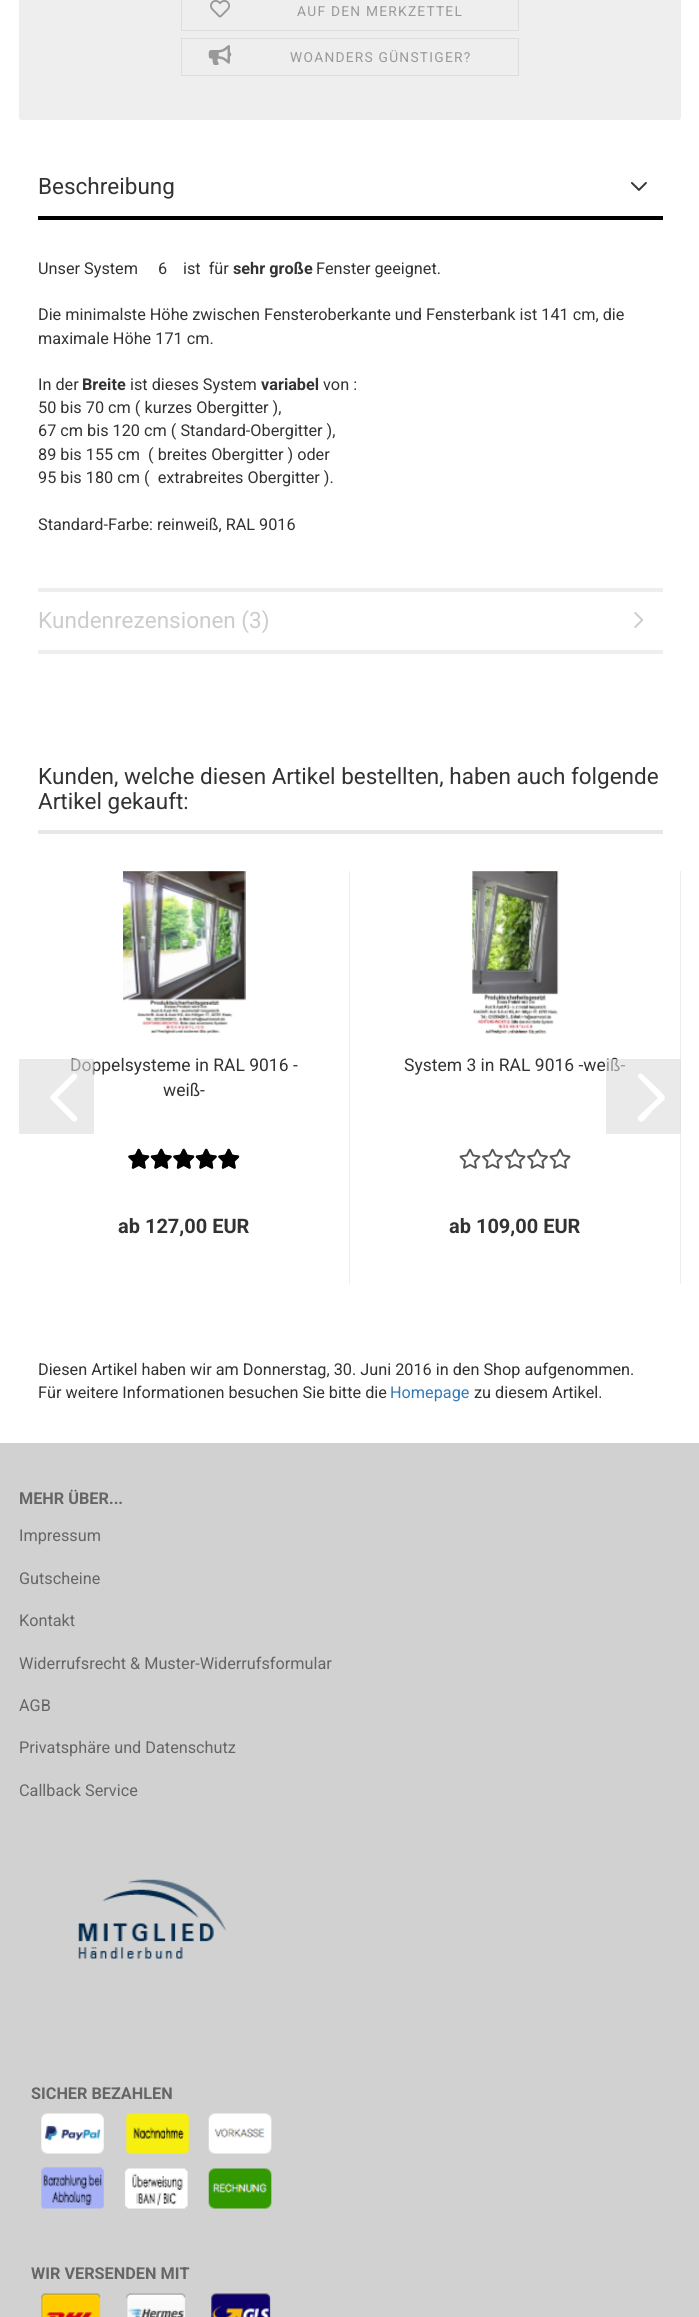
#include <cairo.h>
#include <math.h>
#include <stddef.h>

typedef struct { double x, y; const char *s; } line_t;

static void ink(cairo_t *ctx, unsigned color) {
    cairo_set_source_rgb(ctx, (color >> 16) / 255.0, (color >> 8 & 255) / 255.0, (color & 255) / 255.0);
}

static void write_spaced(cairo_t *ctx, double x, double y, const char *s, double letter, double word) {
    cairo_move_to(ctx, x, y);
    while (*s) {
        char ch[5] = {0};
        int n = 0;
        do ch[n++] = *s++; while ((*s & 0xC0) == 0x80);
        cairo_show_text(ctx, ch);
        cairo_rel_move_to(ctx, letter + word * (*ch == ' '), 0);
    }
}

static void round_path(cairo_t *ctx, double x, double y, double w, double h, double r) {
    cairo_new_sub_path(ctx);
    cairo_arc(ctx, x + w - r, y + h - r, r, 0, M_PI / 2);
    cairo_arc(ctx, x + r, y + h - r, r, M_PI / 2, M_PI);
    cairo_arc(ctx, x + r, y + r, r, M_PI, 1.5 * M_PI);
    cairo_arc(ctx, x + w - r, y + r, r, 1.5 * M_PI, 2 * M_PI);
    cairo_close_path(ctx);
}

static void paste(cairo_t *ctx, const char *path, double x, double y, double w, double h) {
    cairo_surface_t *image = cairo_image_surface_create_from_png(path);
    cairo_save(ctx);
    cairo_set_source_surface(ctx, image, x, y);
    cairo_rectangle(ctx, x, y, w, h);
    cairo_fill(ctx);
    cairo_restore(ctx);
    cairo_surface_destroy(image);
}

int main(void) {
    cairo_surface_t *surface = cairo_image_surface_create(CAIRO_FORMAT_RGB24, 699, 2317);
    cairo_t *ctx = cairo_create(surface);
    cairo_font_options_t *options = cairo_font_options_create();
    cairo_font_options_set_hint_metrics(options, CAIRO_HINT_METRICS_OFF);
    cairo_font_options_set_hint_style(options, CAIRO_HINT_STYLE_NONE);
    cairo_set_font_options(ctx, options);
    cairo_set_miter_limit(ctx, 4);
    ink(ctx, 0xFFFFFF);
    cairo_paint(ctx);
    ink(ctx, 0xEEEEEE);
    round_path(ctx, 19, -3, 662, 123, 2.5);
    cairo_fill(ctx);
    cairo_rectangle(ctx, 181.5, -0.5, 337, 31);
    ink(ctx, 0xDDDDDD);
    cairo_set_line_width(ctx, 1);
    cairo_stroke(ctx);
    paste(ctx, "media/1.png", 210, 0, 20, 18);
    cairo_select_font_face(ctx, "Roboto", CAIRO_FONT_SLANT_NORMAL, CAIRO_FONT_WEIGHT_NORMAL);
    cairo_set_font_size(ctx, 13.75);
    ink(ctx, 0x999999);
    write_spaced(ctx, 297, 16, "AUF DEN MERKZETTEL", 1.25, 0);
    cairo_rectangle(ctx, 181.5, 38.5, 337, 37);
    ink(ctx, 0xDDDDDD);
    cairo_stroke(ctx);
    paste(ctx, "media/2.png", 208, 45, 24, 20);
    ink(ctx, 0x999999);
    write_spaced(ctx, 290, 62, "WOANDERS GÜNSTIGER?", 1.25, 0);
    ink(ctx, 0x000000);
    cairo_rectangle(ctx, 38, 216, 625, 4);
    cairo_fill(ctx);
    cairo_set_font_size(ctx, 22.5);
    ink(ctx, 0x333333);
    cairo_move_to(ctx, 38, 194);
    cairo_show_text(ctx, "Beschreibung");
    paste(ctx, "media/3.png", 631, 182, 16, 9);
    ink(ctx, 0xEEEEEE);
    cairo_rectangle(ctx, 38, 588, 625, 4);
    cairo_fill(ctx);
    cairo_set_font_size(ctx, 16.25);
    ink(ctx, 0x333333);
    cairo_move_to(ctx, 38, 274);
    cairo_show_text(ctx, "Unser System     6");
    cairo_move_to(ctx, 183, 274);
    cairo_show_text(ctx, "ist  für");
    cairo_select_font_face(ctx, "Roboto", CAIRO_FONT_SLANT_NORMAL, CAIRO_FONT_WEIGHT_BOLD);
    cairo_move_to(ctx, 233, 274);
    cairo_show_text(ctx, "sehr große");
    cairo_select_font_face(ctx, "Roboto", CAIRO_FONT_SLANT_NORMAL, CAIRO_FONT_WEIGHT_NORMAL);
    {
        static const line_t items[] = {
            {316, 274, "Fenster geeignet."},
            {38, 320, "Die minimalste Höhe zwischen Fensteroberkante und Fensterbank ist 141 cm, die"},
            {38, 344, "maximale Höhe 171 cm."},
            {38, 390, "In der"},
        };
        for (size_t i = 0; i < sizeof items / sizeof *items; i++) {
            cairo_move_to(ctx, items[i].x, items[i].y);
            cairo_show_text(ctx, items[i].s);
        }
    }
    cairo_select_font_face(ctx, "Roboto", CAIRO_FONT_SLANT_NORMAL, CAIRO_FONT_WEIGHT_BOLD);
    cairo_move_to(ctx, 82, 390);
    cairo_show_text(ctx, "Breite");
    cairo_select_font_face(ctx, "Roboto", CAIRO_FONT_SLANT_NORMAL, CAIRO_FONT_WEIGHT_NORMAL);
    cairo_move_to(ctx, 130, 390);
    cairo_show_text(ctx, "ist dieses System");
    cairo_select_font_face(ctx, "Roboto", CAIRO_FONT_SLANT_NORMAL, CAIRO_FONT_WEIGHT_BOLD);
    cairo_move_to(ctx, 261, 390);
    cairo_show_text(ctx, "variabel");
    cairo_select_font_face(ctx, "Roboto", CAIRO_FONT_SLANT_NORMAL, CAIRO_FONT_WEIGHT_NORMAL);
    {
        static const line_t items[] = {
            {323, 390, "von :"},
            {38, 413, "50 bis 70 cm ( kurzes Obergitter ),"},
            {38, 436, "67 cm bis 120 cm ( Standard-Obergitter ),"},
            {38, 460, "89 bis 155 cm  ( breites Obergitter ) oder"},
            {38, 483, "95 bis 180 cm (  extrabreites Obergitter )."},
            {38, 530, "Standard-Farbe: reinweiß, RAL 9016"},
        };
        for (size_t i = 0; i < sizeof items / sizeof *items; i++) {
            cairo_move_to(ctx, items[i].x, items[i].y);
            cairo_show_text(ctx, items[i].s);
        }
    }
    ink(ctx, 0xEEEEEE);
    cairo_rectangle(ctx, 38, 650, 625, 4);
    cairo_fill(ctx);
    cairo_set_font_size(ctx, 22.5);
    ink(ctx, 0xCCCCCC);
    cairo_move_to(ctx, 38, 628);
    cairo_show_text(ctx, "Kundenrezensionen (3)");
    paste(ctx, "media/4.png", 634, 612, 10, 16);
    ink(ctx, 0xE7E7E7);
    cairo_rectangle(ctx, 38, 830, 625, 4);
    cairo_fill(ctx);
    ink(ctx, 0x333333);
    cairo_move_to(ctx, 38, 784);
    cairo_show_text(ctx, "Kunden, welche diesen Artikel bestellten, haben auch folgende");
    cairo_move_to(ctx, 38, 809);
    cairo_show_text(ctx, "Artikel gekauft:");
    cairo_set_font_size(ctx, 17.5);
    cairo_move_to(ctx, 70, 1071);
    cairo_show_text(ctx, "Doppelsysteme in RAL 9016 -");
    cairo_set_source_rgba(ctx, 0.863, 0.863, 0.863, 0.6);
    cairo_rectangle(ctx, 19, 1059, 75, 75);
    cairo_fill(ctx);
    paste(ctx, "media/5.png", 50, 1073, 28, 49);
    ink(ctx, 0xEEEEEE);
    cairo_rectangle(ctx, 349, 871, 1, 413);
    cairo_fill(ctx);
    paste(ctx, "media/6.png", 123, 871, 123, 163);
    ink(ctx, 0x333333);
    cairo_move_to(ctx, 163, 1096);
    cairo_show_text(ctx, "weiß-");
    paste(ctx, "media/7.png", 128, 1148, 22, 21);
    paste(ctx, "media/8.png", 128, 1148, 22, 21);
    paste(ctx, "media/10.png", 150, 1148, 22, 21);
    paste(ctx, "media/9.png", 150, 1148, 22, 21);
    paste(ctx, "media/7.png", 173, 1148, 22, 21);
    paste(ctx, "media/8.png", 173, 1148, 22, 21);
    paste(ctx, "media/10.png", 195, 1148, 22, 21);
    paste(ctx, "media/9.png", 195, 1148, 22, 21);
    paste(ctx, "media/7.png", 218, 1148, 22, 21);
    paste(ctx, "media/8.png", 218, 1148, 22, 21);
    cairo_select_font_face(ctx, "Roboto", CAIRO_FONT_SLANT_NORMAL, CAIRO_FONT_WEIGHT_BOLD);
    cairo_set_font_size(ctx, 20);
    cairo_move_to(ctx, 118, 1233);
    cairo_show_text(ctx, "ab 127,00 EUR");
    ink(ctx, 0xEEEEEE);
    cairo_rectangle(ctx, 680, 871, 1, 413);
    cairo_fill(ctx);
    paste(ctx, "media/11.png", 472, 871, 87, 163);
    cairo_select_font_face(ctx, "Roboto", CAIRO_FONT_SLANT_NORMAL, CAIRO_FONT_WEIGHT_NORMAL);
    cairo_set_font_size(ctx, 17.5);
    ink(ctx, 0x333333);
    cairo_move_to(ctx, 404, 1071);
    cairo_show_text(ctx, "System 3 in RAL 9016 -weiß-");
    paste(ctx, "media/12.png", 459, 1148, 22, 21);
    paste(ctx, "media/13.png", 482, 1148, 21, 21);
    paste(ctx, "media/12.png", 504, 1148, 22, 21);
    paste(ctx, "media/13.png", 527, 1148, 21, 21);
    paste(ctx, "media/12.png", 549, 1148, 22, 21);
    cairo_select_font_face(ctx, "Roboto", CAIRO_FONT_SLANT_NORMAL, CAIRO_FONT_WEIGHT_BOLD);
    cairo_set_font_size(ctx, 20);
    cairo_move_to(ctx, 449, 1233);
    cairo_show_text(ctx, "ab 109,00 EUR");
    cairo_set_source_rgba(ctx, 0.863, 0.863, 0.863, 0.6);
    cairo_rectangle(ctx, 606, 1059, 75, 75);
    cairo_fill(ctx);
    ink(ctx, 0xFFFFFF);
    cairo_new_path(ctx);
    cairo_move_to(ctx, 641, 1122);
    cairo_line_to(ctx, 638, 1120);
    cairo_curve_to(ctx, 636, 1118, 640, 1115, 642, 1113);
    cairo_line_to(ctx, 658, 1098);
    cairo_line_to(ctx, 638, 1077);
    cairo_curve_to(ctx, 637, 1075, 640, 1073, 642, 1074);
    cairo_line_to(ctx, 657, 1088);
    cairo_curve_to(ctx, 669, 1100, 667, 1097, 653, 1110);
    cairo_curve_to(ctx, 651, 1112, 644, 1122, 641, 1122);
    cairo_close_path(ctx);
    cairo_fill(ctx);
    cairo_select_font_face(ctx, "Roboto", CAIRO_FONT_SLANT_NORMAL, CAIRO_FONT_WEIGHT_NORMAL);
    cairo_set_font_size(ctx, 16.25);
    ink(ctx, 0x333333);
    cairo_move_to(ctx, 38, 1375);
    cairo_show_text(ctx, "Diesen Artikel haben wir am Donnerstag, 30. Juni 2016 in den Shop aufgenommen.");
    cairo_move_to(ctx, 38, 1398);
    cairo_show_text(ctx, "Für weitere Informationen besuchen Sie bitte die");
    ink(ctx, 0x337AB7);
    cairo_move_to(ctx, 390, 1398);
    cairo_show_text(ctx, "Homepage");
    ink(ctx, 0x333333);
    cairo_move_to(ctx, 474, 1398);
    cairo_show_text(ctx, "zu diesem Artikel.");
    ink(ctx, 0xD1D1D1);
    cairo_rectangle(ctx, 0, 1443, 699, 874);
    cairo_fill(ctx);
    cairo_select_font_face(ctx, "Roboto", CAIRO_FONT_SLANT_NORMAL, CAIRO_FONT_WEIGHT_BOLD);
    ink(ctx, 0x666666);
    cairo_move_to(ctx, 19, 1504);
    cairo_show_text(ctx, "MEHR ÜBER...");
    cairo_select_font_face(ctx, "Roboto", CAIRO_FONT_SLANT_NORMAL, CAIRO_FONT_WEIGHT_NORMAL);
    {
        static const line_t items[] = {
            {19, 1541, "Impressum"},
            {19, 1584, "Gutscheine"},
            {19, 1626, "Kontakt"},
            {19, 1669, "Widerrufsrecht & Muster-Widerrufsformular"},
            {19, 1711, "AGB"},
            {19, 1753, "Privatsphäre und Datenschutz"},
            {19, 1796, "Callback Service"},
        };
        for (size_t i = 0; i < sizeof items / sizeof *items; i++) {
            cairo_move_to(ctx, items[i].x, items[i].y);
            cairo_show_text(ctx, items[i].s);
        }
    }
    paste(ctx, "media/14.png", 78, 1879, 149, 80);
    cairo_select_font_face(ctx, "Roboto", CAIRO_FONT_SLANT_NORMAL, CAIRO_FONT_WEIGHT_BOLD);
    cairo_move_to(ctx, 31, 2099);
    cairo_show_text(ctx, "SICHER BEZAHLEN");
    paste(ctx, "media/15.png", 41, 2113, 231, 96);
    cairo_move_to(ctx, 31, 2279);
    cairo_show_text(ctx, "WIR VERSENDEN MIT");
    paste(ctx, "media/16.png", 41, 2293, 230, 24);
    cairo_surface_write_to_png(surface, "image.png");
    cairo_font_options_destroy(options);
    cairo_destroy(ctx);
    cairo_surface_destroy(surface);
    return 0;
}
